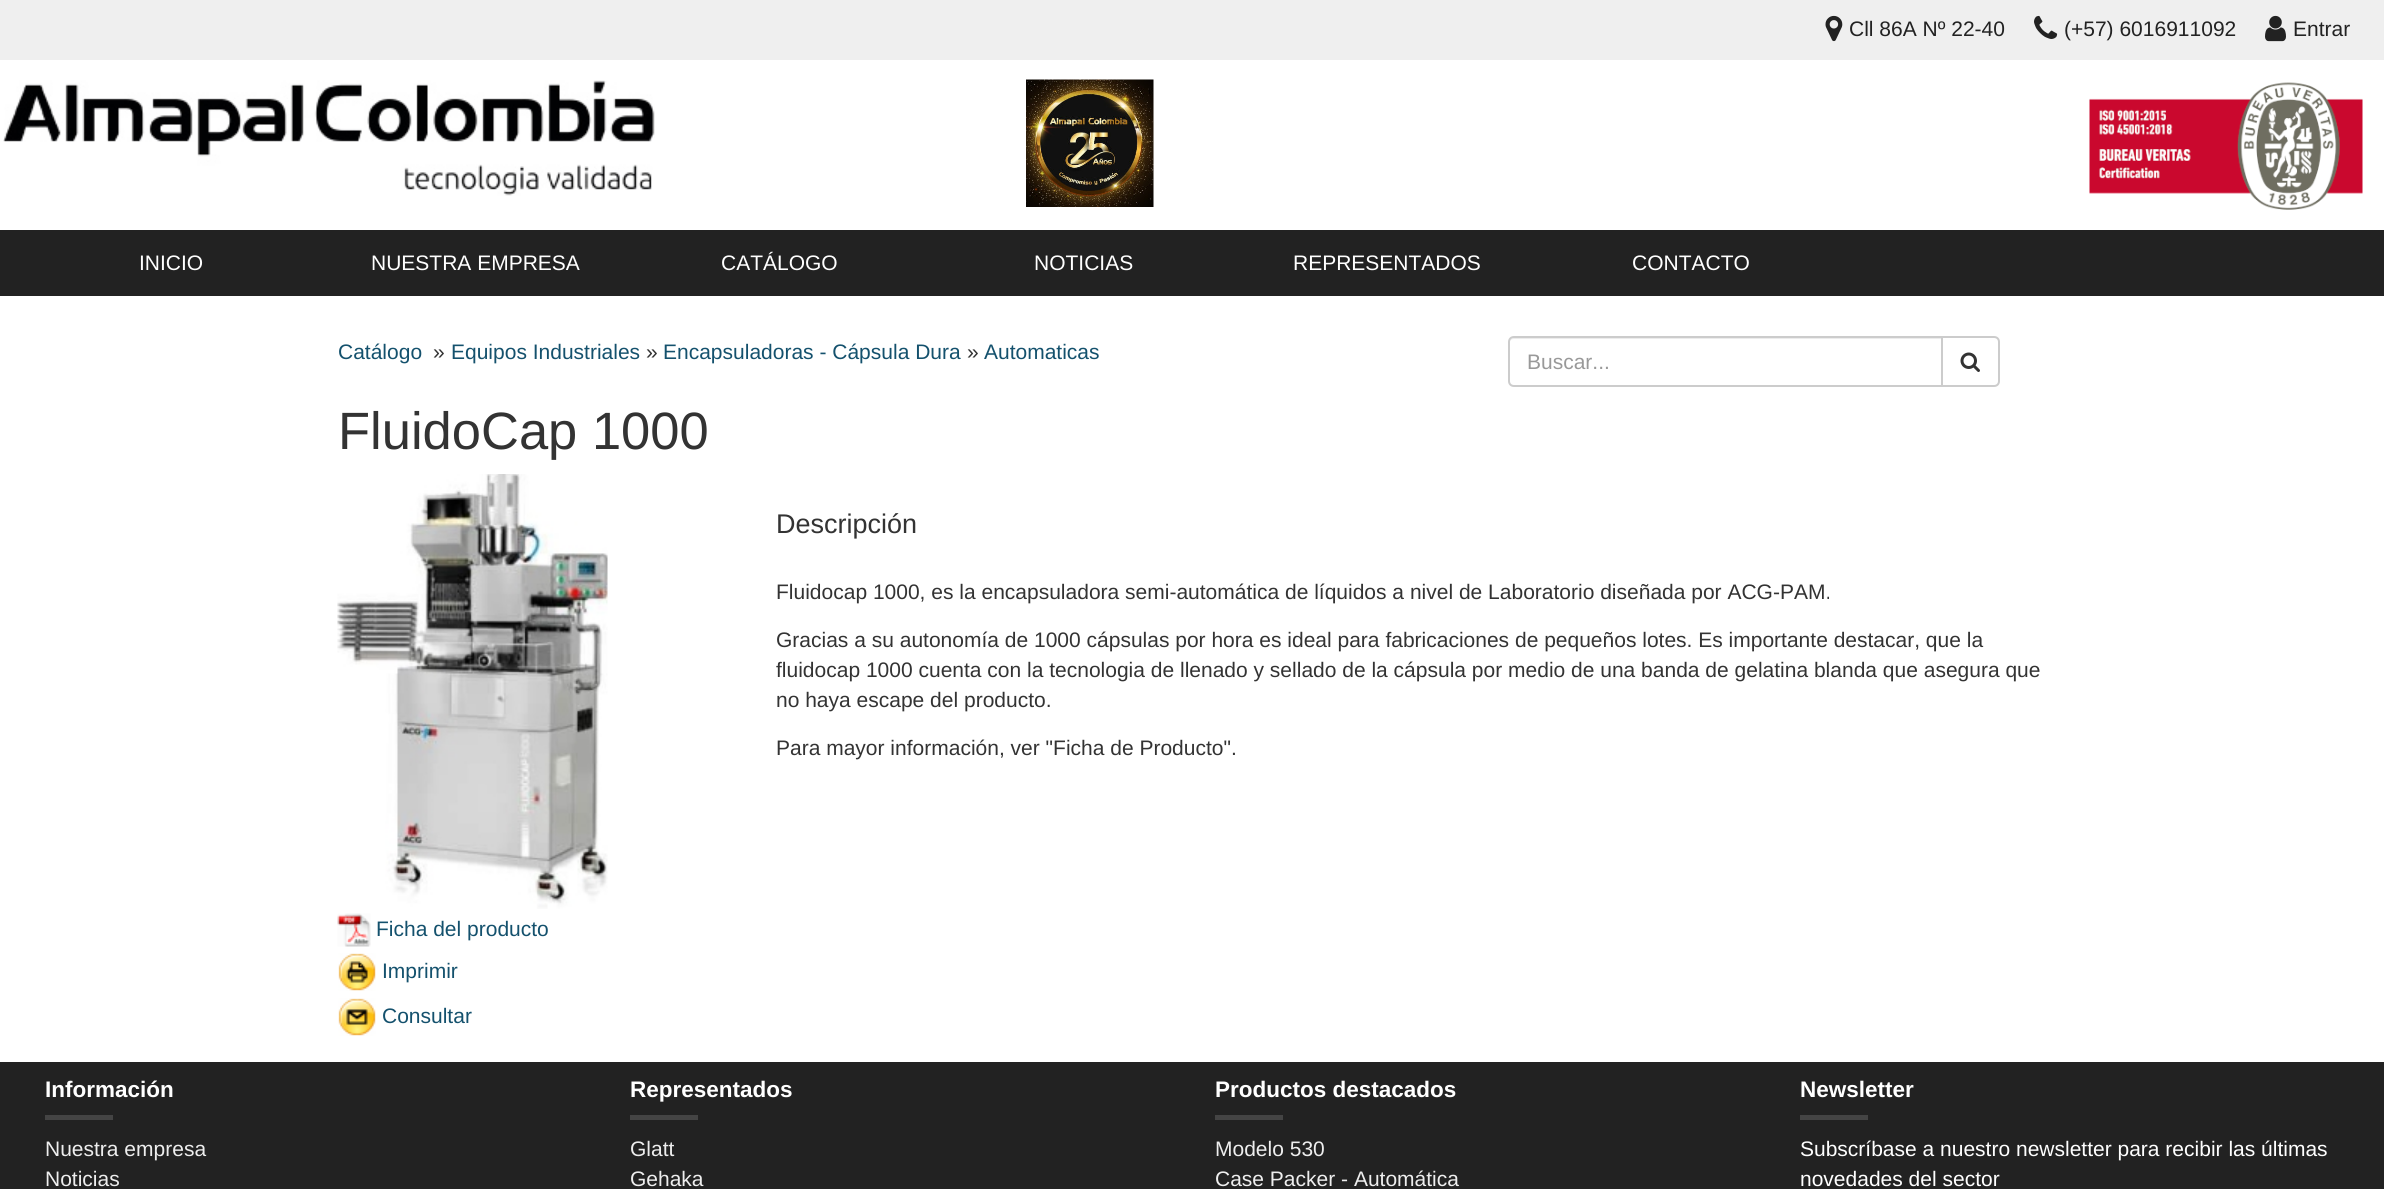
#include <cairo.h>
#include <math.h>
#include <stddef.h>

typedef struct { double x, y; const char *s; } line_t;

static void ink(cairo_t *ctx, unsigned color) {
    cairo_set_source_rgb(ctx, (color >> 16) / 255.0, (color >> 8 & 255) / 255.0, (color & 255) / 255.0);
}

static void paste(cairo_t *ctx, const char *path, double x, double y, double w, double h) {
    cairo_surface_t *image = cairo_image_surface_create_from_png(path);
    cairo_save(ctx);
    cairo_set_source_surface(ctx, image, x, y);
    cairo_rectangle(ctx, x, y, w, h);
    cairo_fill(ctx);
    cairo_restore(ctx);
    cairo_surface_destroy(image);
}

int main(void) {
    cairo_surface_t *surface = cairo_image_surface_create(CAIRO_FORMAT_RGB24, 2384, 1189);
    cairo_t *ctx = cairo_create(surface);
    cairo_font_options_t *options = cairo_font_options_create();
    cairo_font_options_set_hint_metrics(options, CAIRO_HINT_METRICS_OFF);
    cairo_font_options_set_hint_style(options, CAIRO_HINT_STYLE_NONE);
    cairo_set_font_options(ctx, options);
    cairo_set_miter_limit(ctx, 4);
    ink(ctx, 0xFFFFFF);
    cairo_paint(ctx);
    ink(ctx, 0xEFEFEF);
    cairo_rectangle(ctx, 0, 0, 2384, 60);
    cairo_fill(ctx);
    paste(ctx, "media/1.png", 1825, 15, 18, 27);
    cairo_select_font_face(ctx, "Liberation Sans", CAIRO_FONT_SLANT_NORMAL, CAIRO_FONT_WEIGHT_NORMAL);
    cairo_set_font_size(ctx, 21);
    ink(ctx, 0x222222);
    cairo_move_to(ctx, 1849, 36);
    cairo_show_text(ctx, "Cll 86A Nº 22-40");
    paste(ctx, "media/2.png", 2034, 15, 24, 24);
    cairo_move_to(ctx, 2064, 36);
    cairo_show_text(ctx, "(+57) 6016911092");
    paste(ctx, "media/3.png", 2265, 15, 21, 27);
    cairo_move_to(ctx, 2293, 36);
    cairo_show_text(ctx, "Entrar");
    paste(ctx, "media/4.png", 3, 80, 652, 116);
    paste(ctx, "media/5.png", 1026, 79, 128, 128);
    paste(ctx, "media/6.png", 2089, 82, 274, 128);
    cairo_rectangle(ctx, 0, 230, 2384, 66);
    cairo_fill(ctx);
    ink(ctx, 0xFFFFFF);
    {
        static const line_t items[] = {
            {139, 270, "INICIO"},
            {371, 270, "NUESTRA EMPRESA"},
            {721, 270, "CATÁLOGO"},
            {1034, 270, "NOTICIAS"},
            {1293, 270, "REPRESENTADOS"},
            {1632, 270, "CONTACTO"},
        };
        for (size_t i = 0; i < sizeof items / sizeof *items; i++) {
            cairo_move_to(ctx, items[i].x, items[i].y);
            cairo_show_text(ctx, items[i].s);
        }
    }
    ink(ctx, 0x14516D);
    cairo_move_to(ctx, 338, 359);
    cairo_show_text(ctx, "Catálogo");
    ink(ctx, 0x333333);
    cairo_move_to(ctx, 433, 359);
    cairo_show_text(ctx, "»");
    ink(ctx, 0x14516D);
    cairo_move_to(ctx, 451, 359);
    cairo_show_text(ctx, "Equipos Industriales");
    ink(ctx, 0x333333);
    cairo_move_to(ctx, 646, 359);
    cairo_show_text(ctx, "»");
    ink(ctx, 0x14516D);
    cairo_move_to(ctx, 663, 359);
    cairo_show_text(ctx, "Encapsuladoras - Cápsula Dura");
    ink(ctx, 0x333333);
    cairo_move_to(ctx, 967, 359);
    cairo_show_text(ctx, "»");
    ink(ctx, 0x14516D);
    cairo_move_to(ctx, 984, 359);
    cairo_show_text(ctx, "Automaticas");
    ink(ctx, 0xECECEC);
    cairo_new_path(ctx);
    cairo_move_to(ctx, 1514, 339);
    cairo_line_to(ctx, 1941, 339);
    cairo_line_to(ctx, 1941, 338);
    cairo_line_to(ctx, 1514, 338);
    cairo_curve_to(ctx, 1511, 338, 1509, 341, 1509, 344);
    cairo_curve_to(ctx, 1509, 341, 1511, 339, 1514, 339);
    cairo_close_path(ctx);
    cairo_fill(ctx);
    cairo_new_path(ctx);
    cairo_move_to(ctx, 1514, 337);
    cairo_line_to(ctx, 1942, 337);
    cairo_line_to(ctx, 1942, 386);
    cairo_line_to(ctx, 1514, 386);
    cairo_curve_to(ctx, 1511, 386, 1509, 384, 1509, 381);
    cairo_line_to(ctx, 1509, 342);
    cairo_curve_to(ctx, 1509, 339, 1511, 337, 1514, 337);
    cairo_close_path(ctx);
    ink(ctx, 0xCCCCCC);
    cairo_stroke(ctx);
    ink(ctx, 0x999999);
    cairo_move_to(ctx, 1527, 369);
    cairo_show_text(ctx, "Buscar...");
    ink(ctx, 0xFFFFFF);
    cairo_new_path(ctx);
    cairo_move_to(ctx, 1942, 337);
    cairo_line_to(ctx, 1994, 337);
    cairo_curve_to(ctx, 1997, 337, 1999, 339, 1999, 342);
    cairo_line_to(ctx, 1999, 381);
    cairo_curve_to(ctx, 1999, 384, 1997, 386, 1994, 386);
    cairo_line_to(ctx, 1942, 386);
    cairo_close_path(ctx);
    cairo_fill_preserve(ctx);
    ink(ctx, 0xCCCCCC);
    cairo_stroke(ctx);
    paste(ctx, "media/7.png", 1960, 352, 20, 20);
    cairo_set_font_size(ctx, 52.5);
    ink(ctx, 0x333333);
    cairo_move_to(ctx, 338, 449);
    cairo_show_text(ctx, "FluidoCap 1000");
    cairo_set_font_size(ctx, 27);
    cairo_move_to(ctx, 776, 533);
    cairo_show_text(ctx, "Descripción");
    cairo_set_font_size(ctx, 21);
    {
        static const line_t items[] = {
            {776, 599, "Fluidocap 1000, es la encapsuladora semi-automática de líquidos a nivel de Laboratorio diseñada por ACG-PAM."},
            {776, 647, "Gracias a su autonomía de 1000 cápsulas por hora es ideal para fabricaciones de pequeños lotes. Es importante destacar, que la"},
            {776, 677, "fluidocap 1000 cuenta con la tecnologia de llenado y sellado de la cápsula por medio de una banda de gelatina blanda que asegura que"},
            {776, 707, "no haya escape del producto."},
            {776, 755, "Para mayor información, ver \"Ficha de Producto\"."},
        };
        for (size_t i = 0; i < sizeof items / sizeof *items; i++) {
            cairo_move_to(ctx, items[i].x, items[i].y);
            cairo_show_text(ctx, items[i].s);
        }
    }
    paste(ctx, "media/8.png", 337, 474, 271, 435);
    paste(ctx, "media/9.png", 337, 913, 34, 34);
    ink(ctx, 0x14516D);
    cairo_move_to(ctx, 376, 936);
    cairo_show_text(ctx, "Ficha del producto");
    paste(ctx, "media/10.png", 338, 953, 38, 38);
    cairo_move_to(ctx, 382, 978);
    cairo_show_text(ctx, "Imprimir");
    paste(ctx, "media/11.png", 338, 998, 38, 38);
    cairo_move_to(ctx, 382, 1023);
    cairo_show_text(ctx, "Consultar");
    ink(ctx, 0x222222);
    cairo_rectangle(ctx, 0, 1062, 2384, 127);
    cairo_fill(ctx);
    cairo_select_font_face(ctx, "Liberation Sans", CAIRO_FONT_SLANT_NORMAL, CAIRO_FONT_WEIGHT_BOLD);
    cairo_set_font_size(ctx, 22.5);
    ink(ctx, 0xFFFFFF);
    cairo_move_to(ctx, 45, 1097);
    cairo_show_text(ctx, "Información");
    ink(ctx, 0x444444);
    cairo_rectangle(ctx, 45, 1115, 68, 5);
    cairo_fill(ctx);
    cairo_select_font_face(ctx, "Liberation Sans", CAIRO_FONT_SLANT_NORMAL, CAIRO_FONT_WEIGHT_NORMAL);
    cairo_set_font_size(ctx, 21);
    ink(ctx, 0xEEEEEE);
    cairo_move_to(ctx, 45, 1156);
    cairo_show_text(ctx, "Nuestra empresa");
    cairo_move_to(ctx, 45, 1186);
    cairo_show_text(ctx, "Noticias");
    cairo_select_font_face(ctx, "Liberation Sans", CAIRO_FONT_SLANT_NORMAL, CAIRO_FONT_WEIGHT_BOLD);
    cairo_set_font_size(ctx, 22.5);
    ink(ctx, 0xFFFFFF);
    cairo_move_to(ctx, 630, 1097);
    cairo_show_text(ctx, "Representados");
    ink(ctx, 0x444444);
    cairo_rectangle(ctx, 630, 1115, 68, 5);
    cairo_fill(ctx);
    cairo_select_font_face(ctx, "Liberation Sans", CAIRO_FONT_SLANT_NORMAL, CAIRO_FONT_WEIGHT_NORMAL);
    cairo_set_font_size(ctx, 21);
    ink(ctx, 0xEEEEEE);
    cairo_move_to(ctx, 630, 1156);
    cairo_show_text(ctx, "Glatt");
    cairo_move_to(ctx, 630, 1186);
    cairo_show_text(ctx, "Gehaka");
    cairo_select_font_face(ctx, "Liberation Sans", CAIRO_FONT_SLANT_NORMAL, CAIRO_FONT_WEIGHT_BOLD);
    cairo_set_font_size(ctx, 22.5);
    ink(ctx, 0xFFFFFF);
    cairo_move_to(ctx, 1215, 1097);
    cairo_show_text(ctx, "Productos destacados");
    ink(ctx, 0x444444);
    cairo_rectangle(ctx, 1215, 1115, 68, 5);
    cairo_fill(ctx);
    cairo_select_font_face(ctx, "Liberation Sans", CAIRO_FONT_SLANT_NORMAL, CAIRO_FONT_WEIGHT_NORMAL);
    cairo_set_font_size(ctx, 21);
    ink(ctx, 0xEEEEEE);
    cairo_move_to(ctx, 1215, 1156);
    cairo_show_text(ctx, "Modelo 530");
    cairo_move_to(ctx, 1215, 1186);
    cairo_show_text(ctx, "Case Packer - Automática");
    cairo_select_font_face(ctx, "Liberation Sans", CAIRO_FONT_SLANT_NORMAL, CAIRO_FONT_WEIGHT_BOLD);
    cairo_set_font_size(ctx, 22.5);
    ink(ctx, 0xFFFFFF);
    cairo_move_to(ctx, 1800, 1097);
    cairo_show_text(ctx, "Newsletter");
    ink(ctx, 0x444444);
    cairo_rectangle(ctx, 1800, 1115, 68, 5);
    cairo_fill(ctx);
    cairo_select_font_face(ctx, "Liberation Sans", CAIRO_FONT_SLANT_NORMAL, CAIRO_FONT_WEIGHT_NORMAL);
    cairo_set_font_size(ctx, 21);
    ink(ctx, 0xFFFFFF);
    cairo_move_to(ctx, 1800, 1156);
    cairo_show_text(ctx, "Subscríbase a nuestro newsletter para recibir las últimas");
    cairo_move_to(ctx, 1800, 1186);
    cairo_show_text(ctx, "novedades del sector");
    cairo_surface_write_to_png(surface, "image.png");
    cairo_font_options_destroy(options);
    cairo_destroy(ctx);
    cairo_surface_destroy(surface);
    return 0;
}
